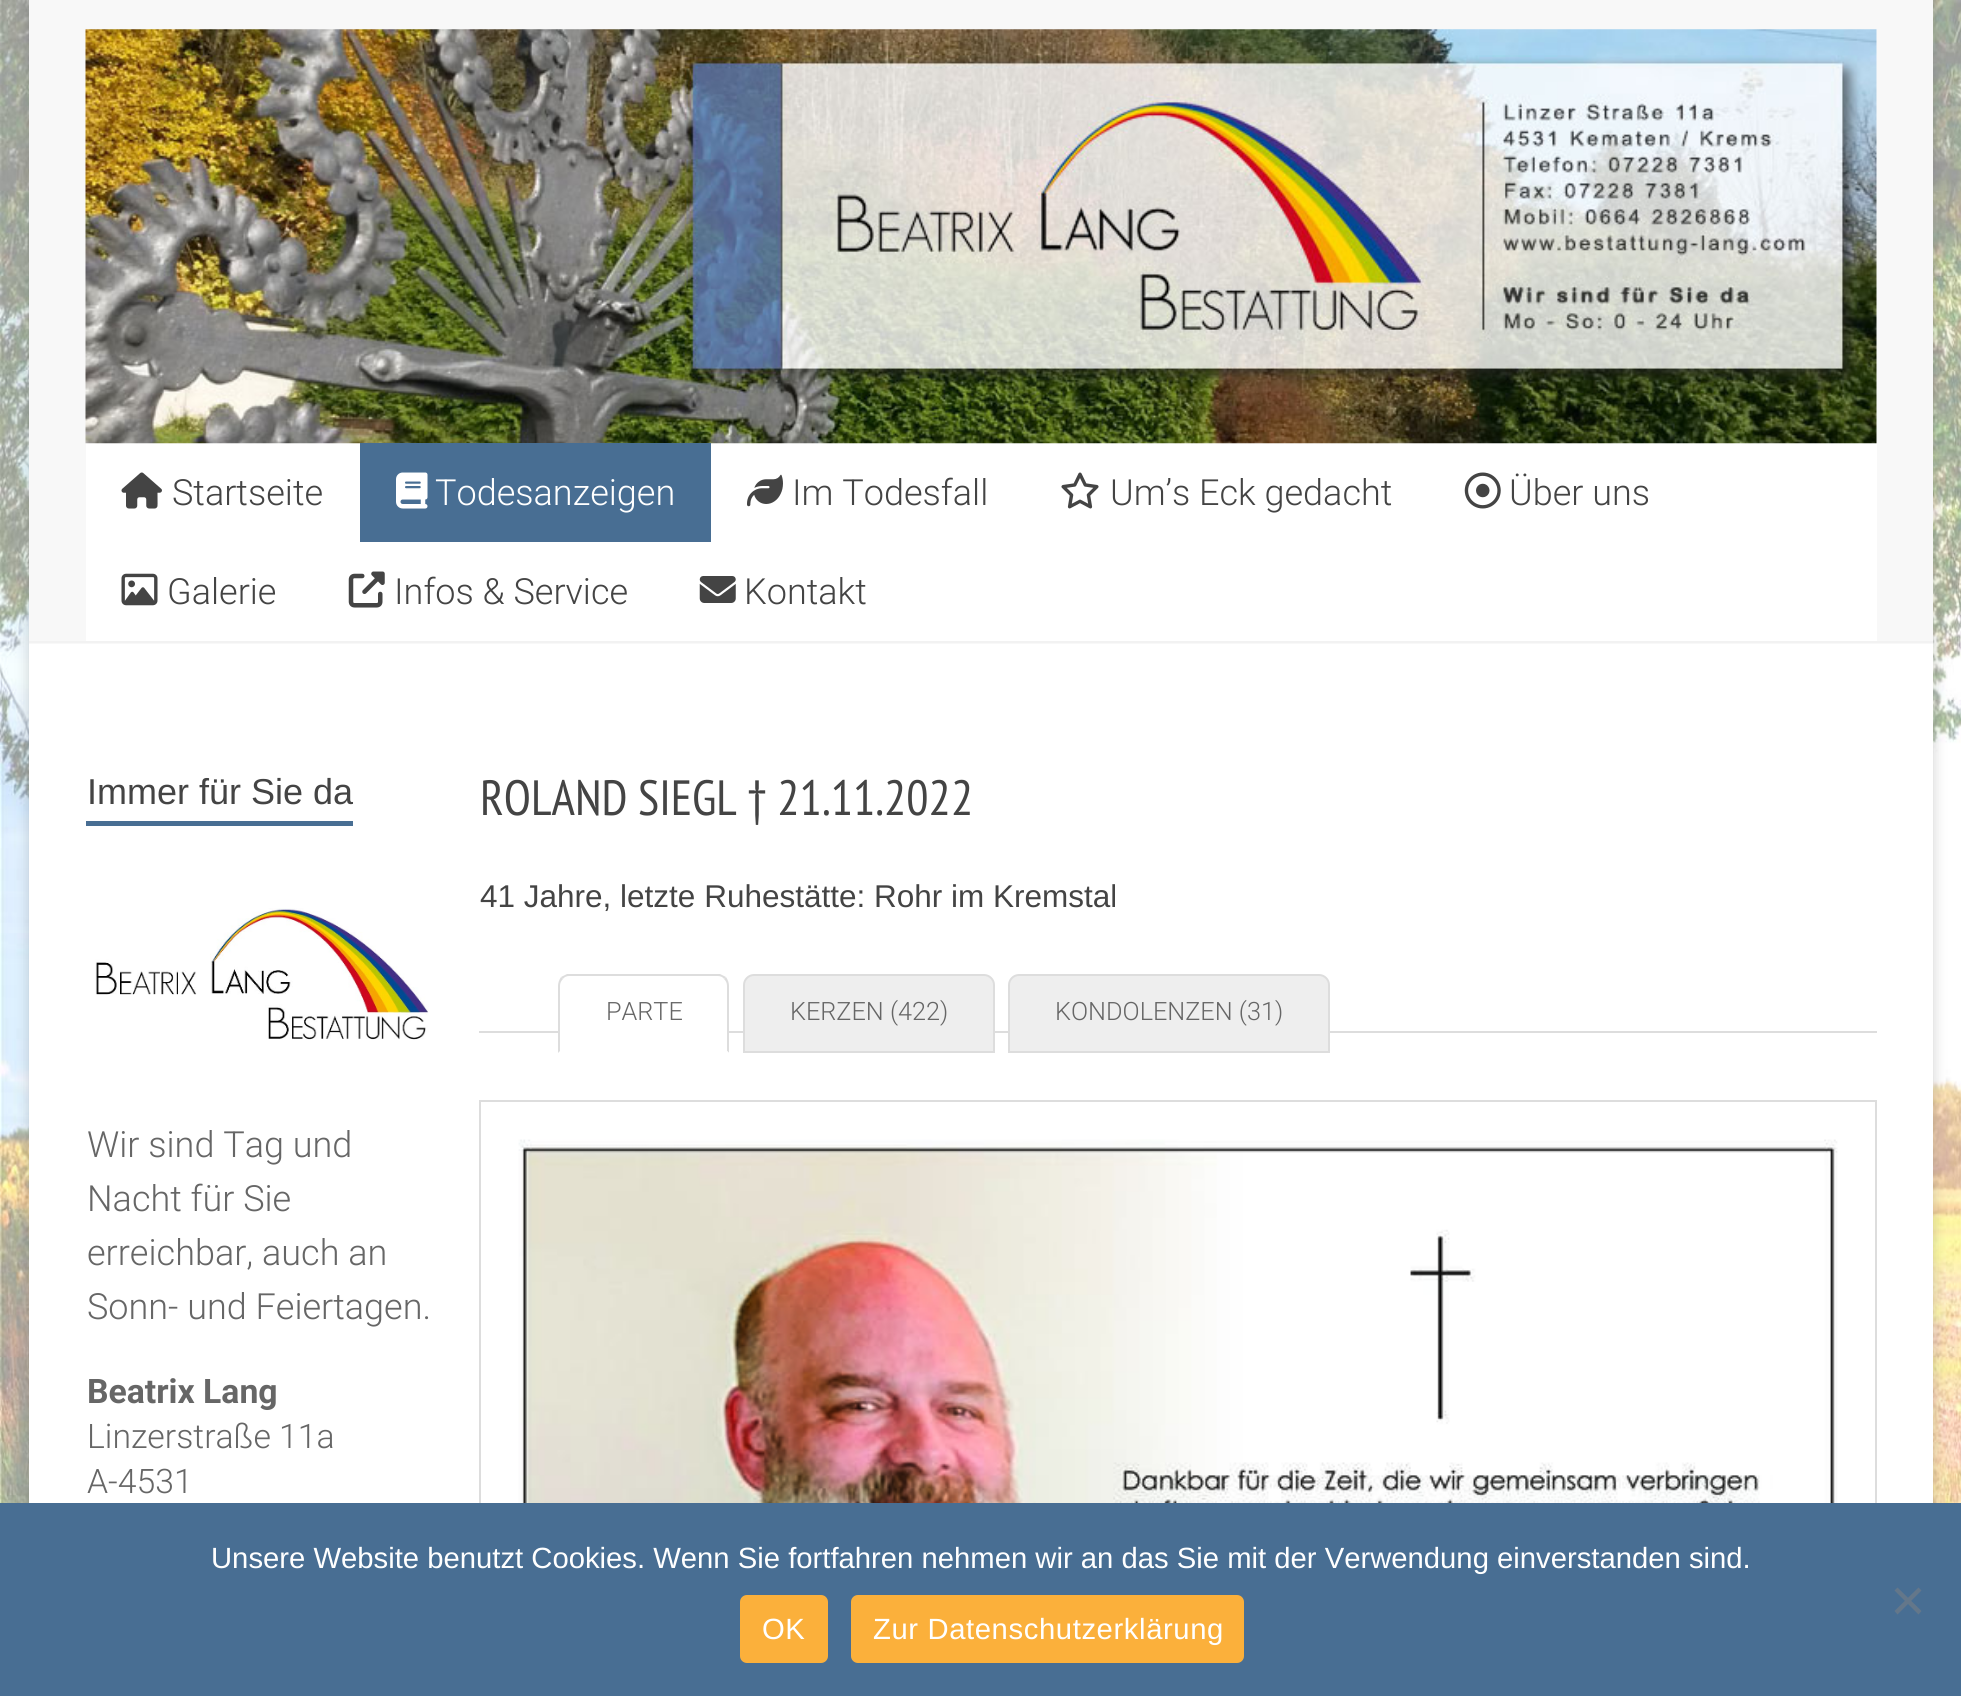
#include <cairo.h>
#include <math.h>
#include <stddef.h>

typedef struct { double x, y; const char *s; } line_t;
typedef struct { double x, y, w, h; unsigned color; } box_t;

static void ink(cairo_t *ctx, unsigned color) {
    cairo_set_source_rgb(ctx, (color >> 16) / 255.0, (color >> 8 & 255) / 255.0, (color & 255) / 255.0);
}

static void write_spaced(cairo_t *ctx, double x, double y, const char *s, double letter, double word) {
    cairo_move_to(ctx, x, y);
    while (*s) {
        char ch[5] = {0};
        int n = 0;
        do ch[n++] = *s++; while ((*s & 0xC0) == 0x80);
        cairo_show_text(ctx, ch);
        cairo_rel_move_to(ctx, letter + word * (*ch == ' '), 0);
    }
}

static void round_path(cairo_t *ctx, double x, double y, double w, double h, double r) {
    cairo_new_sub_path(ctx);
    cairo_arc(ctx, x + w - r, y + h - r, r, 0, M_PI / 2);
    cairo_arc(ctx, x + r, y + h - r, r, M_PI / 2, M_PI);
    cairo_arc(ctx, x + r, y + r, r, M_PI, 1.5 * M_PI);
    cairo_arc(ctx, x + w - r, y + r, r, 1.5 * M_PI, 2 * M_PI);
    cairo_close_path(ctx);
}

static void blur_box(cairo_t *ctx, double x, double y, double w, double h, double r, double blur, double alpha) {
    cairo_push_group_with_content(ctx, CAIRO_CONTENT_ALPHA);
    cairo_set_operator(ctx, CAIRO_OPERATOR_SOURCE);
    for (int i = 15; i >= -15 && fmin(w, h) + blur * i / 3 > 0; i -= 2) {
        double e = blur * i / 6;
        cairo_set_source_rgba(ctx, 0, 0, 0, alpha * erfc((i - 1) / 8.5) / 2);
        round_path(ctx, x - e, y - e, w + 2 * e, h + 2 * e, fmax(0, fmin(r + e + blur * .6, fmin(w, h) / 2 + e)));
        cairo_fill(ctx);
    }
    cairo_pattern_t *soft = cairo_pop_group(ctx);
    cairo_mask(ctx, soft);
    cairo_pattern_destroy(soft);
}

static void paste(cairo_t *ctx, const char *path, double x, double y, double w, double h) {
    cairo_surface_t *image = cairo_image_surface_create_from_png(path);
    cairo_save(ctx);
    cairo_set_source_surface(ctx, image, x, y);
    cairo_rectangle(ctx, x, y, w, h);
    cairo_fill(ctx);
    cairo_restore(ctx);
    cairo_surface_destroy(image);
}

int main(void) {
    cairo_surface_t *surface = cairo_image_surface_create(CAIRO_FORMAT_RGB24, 1961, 1696);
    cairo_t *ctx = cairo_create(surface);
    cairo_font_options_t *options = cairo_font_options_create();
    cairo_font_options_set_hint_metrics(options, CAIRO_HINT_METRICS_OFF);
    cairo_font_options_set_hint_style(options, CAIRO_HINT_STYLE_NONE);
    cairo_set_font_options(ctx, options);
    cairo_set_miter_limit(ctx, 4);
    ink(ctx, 0xFFFFFF);
    cairo_paint(ctx);
    paste(ctx, "media/1.png", 0, 0, 1961, 1503);
    ink(ctx, 0x646464);
    blur_box(ctx, 29, -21, 1904, 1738, 0, 7, 0.3);
    {
        static const box_t items[] = {
            {29, 644, 1904, 859, 0xFFFFFF},
            {29, 0, 1904, 644, 0xF8F8F8},
            {29, 641, 1904, 2, 0xF2F2F2},
            {86, 443, 1791, 198, 0xFFFFFF},
        };
        for (size_t i = 0; i < sizeof items / sizeof *items; i++) {
            ink(ctx, items[i].color);
            cairo_rectangle(ctx, items[i].x, items[i].y, items[i].w, items[i].h);
            cairo_fill(ctx);
        }
    }
    paste(ctx, "media/2.png", 85, 29, 1792, 415);
    paste(ctx, "media/3.png", 121, 472, 41, 37);
    cairo_select_font_face(ctx, "Roboto Light", CAIRO_FONT_SLANT_NORMAL, CAIRO_FONT_WEIGHT_NORMAL);
    cairo_set_font_size(ctx, 36);
    ink(ctx, 0x444444);
    cairo_move_to(ctx, 172, 505);
    cairo_show_text(ctx, "Startseite");
    ink(ctx, 0x486E93);
    cairo_rectangle(ctx, 360, 443, 351, 99);
    cairo_fill(ctx);
    paste(ctx, "media/4.png", 396, 472, 32, 37);
    ink(ctx, 0xFFFFFF);
    cairo_move_to(ctx, 435, 505);
    cairo_show_text(ctx, "Todesanzeigen");
    paste(ctx, "media/5.png", 747, 474, 36, 33);
    ink(ctx, 0x444444);
    cairo_move_to(ctx, 792, 505);
    cairo_show_text(ctx, "Im Todesfall");
    paste(ctx, "media/6.png", 1061, 472, 38, 37);
    cairo_move_to(ctx, 1110, 505);
    cairo_show_text(ctx, "Um’s Eck gedacht");
    paste(ctx, "media/7.png", 1464, 472, 37, 37);
    cairo_move_to(ctx, 1509, 505);
    cairo_show_text(ctx, "Über uns");
    paste(ctx, "media/8.png", 121, 573, 37, 33);
    cairo_move_to(ctx, 167, 604);
    cairo_show_text(ctx, "Galerie");
    paste(ctx, "media/9.png", 348, 571, 37, 37);
    cairo_move_to(ctx, 394, 604);
    cairo_show_text(ctx, "Infos & Service");
    paste(ctx, "media/10.png", 699, 576, 37, 27);
    cairo_move_to(ctx, 744, 604);
    cairo_show_text(ctx, "Kontakt");
    cairo_select_font_face(ctx, "Liberation Sans", CAIRO_FONT_SLANT_NORMAL, CAIRO_FONT_WEIGHT_NORMAL);
    cairo_move_to(ctx, 87, 804);
    cairo_show_text(ctx, "Immer für Sie da");
    ink(ctx, 0x486E93);
    cairo_rectangle(ctx, 86, 821, 267, 5);
    cairo_fill(ctx);
    paste(ctx, "media/11.png", 95, 908, 334, 132);
    cairo_select_font_face(ctx, "Roboto Light", CAIRO_FONT_SLANT_NORMAL, CAIRO_FONT_WEIGHT_NORMAL);
    ink(ctx, 0x666666);
    {
        static const line_t items[] = {
            {87, 1157, "Wir sind Tag und"},
            {87, 1211, "Nacht für Sie"},
            {87, 1265, "erreichbar, auch an"},
            {87, 1319, "Sonn- und Feiertagen."},
        };
        for (size_t i = 0; i < sizeof items / sizeof *items; i++) {
            cairo_move_to(ctx, items[i].x, items[i].y);
            cairo_show_text(ctx, items[i].s);
        }
    }
    cairo_select_font_face(ctx, "Roboto", CAIRO_FONT_SLANT_NORMAL, CAIRO_FONT_WEIGHT_BOLD);
    cairo_set_font_size(ctx, 33.75);
    cairo_move_to(ctx, 87, 1403);
    cairo_show_text(ctx, "Beatrix Lang");
    cairo_select_font_face(ctx, "Roboto Light", CAIRO_FONT_SLANT_NORMAL, CAIRO_FONT_WEIGHT_NORMAL);
    cairo_move_to(ctx, 87, 1448);
    cairo_show_text(ctx, "Linzerstraße 11a");
    cairo_move_to(ctx, 87, 1493);
    cairo_show_text(ctx, "A-4531");
    cairo_select_font_face(ctx, "PT Sans Narrow", CAIRO_FONT_SLANT_NORMAL, CAIRO_FONT_WEIGHT_NORMAL);
    cairo_set_font_size(ctx, 49.5);
    ink(ctx, 0x444444);
    cairo_move_to(ctx, 480, 815);
    cairo_show_text(ctx, "ROLAND SIEGL † 21.11.2022");
    cairo_select_font_face(ctx, "Liberation Sans", CAIRO_FONT_SLANT_NORMAL, CAIRO_FONT_WEIGHT_NORMAL);
    cairo_set_font_size(ctx, 31.5);
    cairo_move_to(ctx, 480, 907);
    cairo_show_text(ctx, "41 Jahre, letzte Ruhestätte: Rohr im Kremstal");
    ink(ctx, 0xDDDDDD);
    cairo_rectangle(ctx, 479, 1031, 1398, 2);
    cairo_fill(ctx);
    ink(ctx, 0xFFFFFF);
    cairo_new_path(ctx);
    cairo_move_to(ctx, 569, 974);
    cairo_line_to(ctx, 718, 974);
    cairo_curve_to(ctx, 724, 974, 729, 979, 729, 985);
    cairo_line_to(ctx, 729, 1053);
    cairo_line_to(ctx, 558, 1053);
    cairo_line_to(ctx, 558, 985);
    cairo_curve_to(ctx, 558, 979, 563, 974, 569, 974);
    cairo_close_path(ctx);
    cairo_fill(ctx);
    cairo_select_font_face(ctx, "Roboto Light", CAIRO_FONT_SLANT_NORMAL, CAIRO_FONT_WEIGHT_NORMAL);
    cairo_set_font_size(ctx, 25.25);
    ink(ctx, 0x666666);
    cairo_move_to(ctx, 606, 1020);
    cairo_show_text(ctx, "PARTE");
    ink(ctx, 0xDDDDDD);
    cairo_new_path(ctx);
    cairo_move_to(ctx, 569, 976);
    cairo_curve_to(ctx, 567, 976, 564, 977, 563, 979);
    cairo_line_to(ctx, 561, 977);
    cairo_curve_to(ctx, 563, 976, 565, 975, 567, 974);
    cairo_line_to(ctx, 720, 974);
    cairo_curve_to(ctx, 722, 975, 724, 976, 726, 977);
    cairo_line_to(ctx, 724, 979);
    cairo_curve_to(ctx, 723, 977, 720, 976, 718, 976);
    cairo_close_path(ctx);
    cairo_fill(ctx);
    cairo_new_path(ctx);
    cairo_move_to(ctx, 729, 1053);
    cairo_line_to(ctx, 729, 986);
    cairo_curve_to(ctx, 729, 983, 728, 980, 726, 977);
    cairo_line_to(ctx, 724, 979);
    cairo_curve_to(ctx, 726, 981, 727, 983, 727, 986);
    cairo_line_to(ctx, 727, 1051);
    cairo_close_path(ctx);
    cairo_fill(ctx);
    ink(ctx, 0xFFFFFF);
    cairo_new_path(ctx);
    cairo_move_to(ctx, 729, 1053);
    cairo_line_to(ctx, 727, 1051);
    cairo_line_to(ctx, 560, 1051);
    cairo_line_to(ctx, 558, 1053);
    cairo_close_path(ctx);
    cairo_fill(ctx);
    ink(ctx, 0xDDDDDD);
    cairo_new_path(ctx);
    cairo_move_to(ctx, 558, 1053);
    cairo_line_to(ctx, 560, 1051);
    cairo_line_to(ctx, 560, 986);
    cairo_curve_to(ctx, 560, 983, 561, 981, 563, 979);
    cairo_line_to(ctx, 561, 977);
    cairo_curve_to(ctx, 559, 980, 558, 983, 558, 986);
    cairo_close_path(ctx);
    cairo_fill(ctx);
    ink(ctx, 0xEEEEEE);
    cairo_new_path(ctx);
    cairo_move_to(ctx, 754, 975);
    cairo_line_to(ctx, 984, 975);
    cairo_curve_to(ctx, 989.5, 975, 994, 979.5, 994, 985);
    cairo_line_to(ctx, 994, 1052);
    cairo_line_to(ctx, 744, 1052);
    cairo_line_to(ctx, 744, 985);
    cairo_curve_to(ctx, 744, 979.5, 748.5, 975, 754, 975);
    cairo_close_path(ctx);
    cairo_fill_preserve(ctx);
    ink(ctx, 0xDDDDDD);
    cairo_stroke(ctx);
    ink(ctx, 0x666666);
    cairo_move_to(ctx, 790, 1020);
    cairo_show_text(ctx, "KERZEN (422)");
    ink(ctx, 0xEEEEEE);
    cairo_new_path(ctx);
    cairo_move_to(ctx, 1019, 975);
    cairo_line_to(ctx, 1319, 975);
    cairo_curve_to(ctx, 1324.5, 975, 1329, 979.5, 1329, 985);
    cairo_line_to(ctx, 1329, 1052);
    cairo_line_to(ctx, 1009, 1052);
    cairo_line_to(ctx, 1009, 985);
    cairo_curve_to(ctx, 1009, 979.5, 1013.5, 975, 1019, 975);
    cairo_close_path(ctx);
    cairo_fill_preserve(ctx);
    ink(ctx, 0xDDDDDD);
    cairo_stroke(ctx);
    ink(ctx, 0x666666);
    cairo_move_to(ctx, 1055, 1020);
    cairo_show_text(ctx, "KONDOLENZEN (31)");
    cairo_rectangle(ctx, 480, 1101, 1396, 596);
    ink(ctx, 0xDDDDDD);
    cairo_stroke(ctx);
    paste(ctx, "media/12.png", 518, 1139, 1320, 364);
    ink(ctx, 0x486E93);
    cairo_rectangle(ctx, 0, 1503, 1961, 193);
    cairo_fill(ctx);
    cairo_select_font_face(ctx, "Liberation Sans", CAIRO_FONT_SLANT_NORMAL, CAIRO_FONT_WEIGHT_NORMAL);
    cairo_set_font_size(ctx, 29.25);
    ink(ctx, 0xFFFFFF);
    cairo_move_to(ctx, 211, 1568);
    cairo_show_text(ctx, "Unsere Website benutzt Cookies. Wenn Sie fortfahren nehmen wir an das Sie mit der Verwendung einverstanden sind.");
    ink(ctx, 0x64778A);
    cairo_new_path(ctx);
    cairo_move_to(ctx, 1918.5, 1587.5);
    cairo_line_to(ctx, 1921.5, 1590.5);
    cairo_line_to(ctx, 1897.5, 1614.5);
    cairo_line_to(ctx, 1894.5, 1611);
    cairo_close_path(ctx);
    cairo_fill(ctx);
    cairo_new_path(ctx);
    cairo_move_to(ctx, 1894.5, 1590.5);
    cairo_line_to(ctx, 1897.5, 1587.5);
    cairo_line_to(ctx, 1921.5, 1611);
    cairo_line_to(ctx, 1918.5, 1614.5);
    cairo_close_path(ctx);
    cairo_fill(ctx);
    ink(ctx, 0xFBB03B);
    round_path(ctx, 740, 1595, 88, 68, 7);
    cairo_fill(ctx);
    ink(ctx, 0xFFFFFF);
    write_spaced(ctx, 762, 1639, "OK", 0.6, 0);
    ink(ctx, 0xFBB03B);
    round_path(ctx, 851, 1595, 393, 68, 7);
    cairo_fill(ctx);
    ink(ctx, 0xFFFFFF);
    write_spaced(ctx, 873, 1639, "Zur Datenschutzerklärung", 0.6, 0);
    cairo_surface_write_to_png(surface, "image.png");
    cairo_font_options_destroy(options);
    cairo_destroy(ctx);
    cairo_surface_destroy(surface);
    return 0;
}
